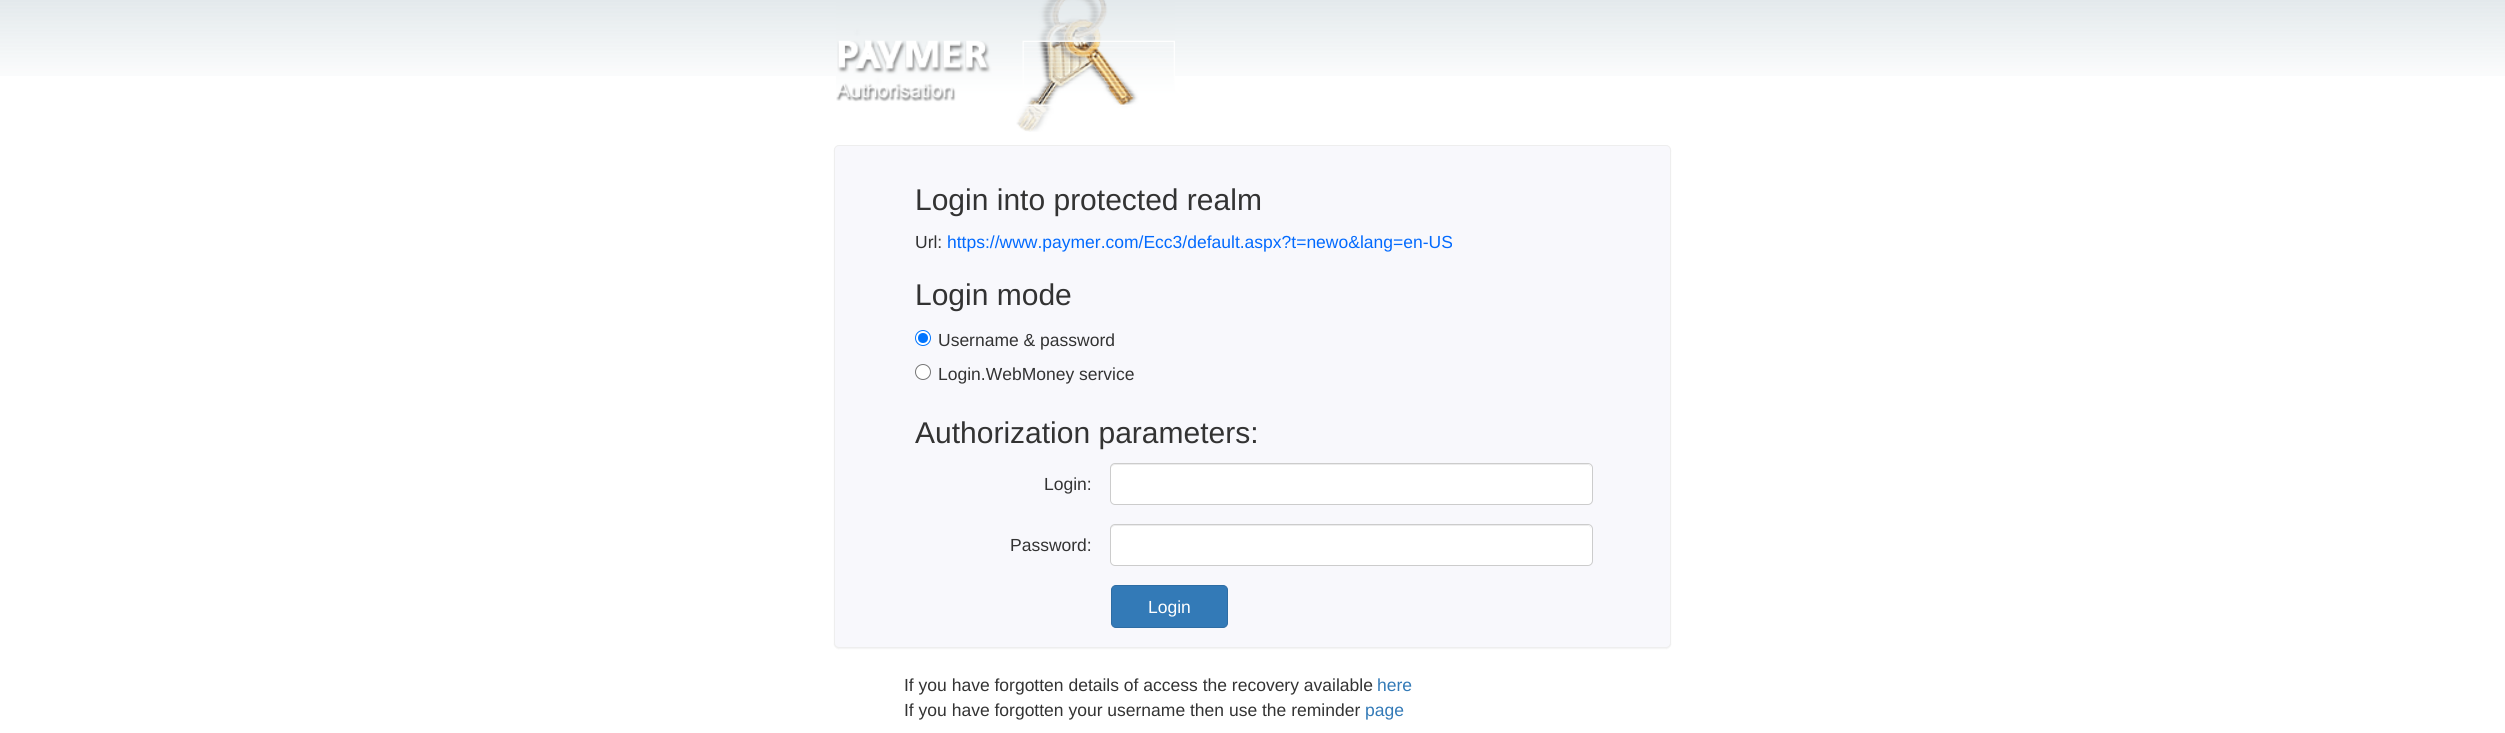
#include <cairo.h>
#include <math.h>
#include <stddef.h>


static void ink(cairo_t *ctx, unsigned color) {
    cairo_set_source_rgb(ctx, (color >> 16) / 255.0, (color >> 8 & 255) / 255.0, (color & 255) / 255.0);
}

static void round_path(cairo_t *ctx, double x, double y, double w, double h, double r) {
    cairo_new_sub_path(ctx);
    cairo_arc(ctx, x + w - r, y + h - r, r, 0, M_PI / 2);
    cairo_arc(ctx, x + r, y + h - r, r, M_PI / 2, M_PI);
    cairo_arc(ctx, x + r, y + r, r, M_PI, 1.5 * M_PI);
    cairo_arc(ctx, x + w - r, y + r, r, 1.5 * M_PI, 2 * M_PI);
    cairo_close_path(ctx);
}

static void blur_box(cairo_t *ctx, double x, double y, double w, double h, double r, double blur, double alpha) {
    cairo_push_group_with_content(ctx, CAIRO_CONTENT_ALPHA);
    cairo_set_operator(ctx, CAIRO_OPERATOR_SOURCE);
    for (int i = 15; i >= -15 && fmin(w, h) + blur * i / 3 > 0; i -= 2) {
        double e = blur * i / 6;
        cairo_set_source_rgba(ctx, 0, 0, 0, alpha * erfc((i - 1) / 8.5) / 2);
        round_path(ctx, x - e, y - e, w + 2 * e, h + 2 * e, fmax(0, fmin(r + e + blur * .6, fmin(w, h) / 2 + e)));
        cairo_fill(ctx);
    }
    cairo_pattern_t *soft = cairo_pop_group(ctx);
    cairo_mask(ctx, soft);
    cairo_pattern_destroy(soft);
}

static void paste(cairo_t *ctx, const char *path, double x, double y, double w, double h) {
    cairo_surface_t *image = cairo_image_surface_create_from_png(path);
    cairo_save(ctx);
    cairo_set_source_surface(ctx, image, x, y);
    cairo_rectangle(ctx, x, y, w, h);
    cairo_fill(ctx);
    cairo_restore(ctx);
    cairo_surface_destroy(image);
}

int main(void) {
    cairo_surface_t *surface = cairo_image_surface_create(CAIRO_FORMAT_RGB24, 2505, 733);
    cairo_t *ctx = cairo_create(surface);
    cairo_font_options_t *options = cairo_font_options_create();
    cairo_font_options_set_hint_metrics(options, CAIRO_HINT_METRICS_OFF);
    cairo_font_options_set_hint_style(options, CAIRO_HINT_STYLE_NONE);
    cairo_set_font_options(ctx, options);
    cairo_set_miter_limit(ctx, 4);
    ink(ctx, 0xFFFFFF);
    cairo_paint(ctx);
    paste(ctx, "media/1.png", 0, 0, 2505, 76);
    paste(ctx, "media/2.png", 836, 0, 339, 132);
    ink(ctx, 0x000000);
    blur_box(ctx, 834, 146, 837, 503, 5, 0.5, 0.05);
    ink(ctx, 0xF8F8FC);
    round_path(ctx, 834.5, 145.5, 836, 502, 4.5);
    cairo_fill_preserve(ctx);
    ink(ctx, 0xEEEEEE);
    cairo_set_line_width(ctx, 1);
    cairo_stroke(ctx);
    cairo_select_font_face(ctx, "Liberation Sans", CAIRO_FONT_SLANT_NORMAL, CAIRO_FONT_WEIGHT_NORMAL);
    cairo_set_font_size(ctx, 30);
    ink(ctx, 0x333333);
    cairo_move_to(ctx, 915, 210);
    cairo_show_text(ctx, "Login into protected realm");
    cairo_set_font_size(ctx, 17.5);
    cairo_move_to(ctx, 915, 248);
    cairo_show_text(ctx, "Url:");
    ink(ctx, 0x026AFE);
    cairo_move_to(ctx, 947, 248);
    cairo_show_text(ctx, "https://www.paymer.com/Ecc3/default.aspx?t=newo&lang=en-US");
    cairo_set_font_size(ctx, 30);
    ink(ctx, 0x333333);
    cairo_move_to(ctx, 915, 305);
    cairo_show_text(ctx, "Login mode");
    ink(ctx, 0xFFFFFF);
    cairo_new_path(ctx);
    cairo_arc(ctx, 923, 338, 7.5, 0, 2 * M_PI);
    cairo_fill_preserve(ctx);
    ink(ctx, 0x0075FF);
    cairo_stroke(ctx);
    cairo_arc(ctx, 923, 338, 5, 0, 2 * M_PI);
    cairo_fill(ctx);
    cairo_set_font_size(ctx, 17.5);
    ink(ctx, 0x333333);
    cairo_move_to(ctx, 938, 346);
    cairo_show_text(ctx, "Username & password");
    ink(ctx, 0xFFFFFF);
    cairo_new_path(ctx);
    cairo_arc(ctx, 923, 372, 7.5, 0, 2 * M_PI);
    cairo_fill_preserve(ctx);
    ink(ctx, 0x767676);
    cairo_stroke(ctx);
    ink(ctx, 0x333333);
    cairo_move_to(ctx, 938, 380);
    cairo_show_text(ctx, "Login.WebMoney service");
    cairo_set_font_size(ctx, 30);
    cairo_move_to(ctx, 915, 443);
    cairo_show_text(ctx, "Authorization parameters:");
    cairo_set_font_size(ctx, 17.5);
    cairo_move_to(ctx, 1044, 490);
    cairo_show_text(ctx, "Login:");
    ink(ctx, 0xFFFFFF);
    round_path(ctx, 1110, 463, 483, 42, 5);
    cairo_fill(ctx);
    ink(ctx, 0xECECEC);
    cairo_new_path(ctx);
    cairo_move_to(ctx, 1115, 465);
    cairo_line_to(ctx, 1588, 465);
    cairo_curve_to(ctx, 1590, 465, 1591, 467, 1591, 469);
    cairo_curve_to(ctx, 1591, 466, 1590, 464, 1587, 464);
    cairo_line_to(ctx, 1115, 464);
    cairo_curve_to(ctx, 1112, 464, 1111, 466, 1111, 469);
    cairo_curve_to(ctx, 1111, 467, 1113, 465, 1115, 465);
    cairo_close_path(ctx);
    cairo_fill(ctx);
    round_path(ctx, 1110.5, 463.5, 482, 41, 4.5);
    ink(ctx, 0xCCCCCC);
    cairo_stroke(ctx);
    ink(ctx, 0x333333);
    cairo_move_to(ctx, 1010, 551);
    cairo_show_text(ctx, "Password:");
    ink(ctx, 0xFFFFFF);
    round_path(ctx, 1110, 524, 483, 42, 5);
    cairo_fill(ctx);
    ink(ctx, 0xECECEC);
    cairo_new_path(ctx);
    cairo_move_to(ctx, 1115, 526);
    cairo_line_to(ctx, 1588, 526);
    cairo_curve_to(ctx, 1590, 526, 1591, 528, 1591, 530);
    cairo_curve_to(ctx, 1591, 527, 1590, 525, 1587, 525);
    cairo_line_to(ctx, 1115, 525);
    cairo_curve_to(ctx, 1112, 525, 1111, 527, 1111, 530);
    cairo_curve_to(ctx, 1111, 528, 1113, 526, 1115, 526);
    cairo_close_path(ctx);
    cairo_fill(ctx);
    round_path(ctx, 1110.5, 524.5, 482, 41, 4.5);
    ink(ctx, 0xCCCCCC);
    cairo_stroke(ctx);
    ink(ctx, 0x337AB7);
    round_path(ctx, 1111.5, 585.5, 116, 42, 4.5);
    cairo_fill_preserve(ctx);
    ink(ctx, 0x2E6DA4);
    cairo_stroke(ctx);
    ink(ctx, 0xFFFFFF);
    cairo_move_to(ctx, 1148, 613);
    cairo_show_text(ctx, "Login");
    ink(ctx, 0x333333);
    cairo_move_to(ctx, 904, 691);
    cairo_show_text(ctx, "If you have forgotten details of access the recovery available");
    ink(ctx, 0x337AB7);
    cairo_move_to(ctx, 1377, 691);
    cairo_show_text(ctx, "here");
    ink(ctx, 0x333333);
    cairo_move_to(ctx, 904, 716);
    cairo_show_text(ctx, "If you have forgotten your username then use the reminder");
    ink(ctx, 0x337AB7);
    cairo_move_to(ctx, 1365, 716);
    cairo_show_text(ctx, "page");
    cairo_surface_write_to_png(surface, "image.png");
    cairo_font_options_destroy(options);
    cairo_destroy(ctx);
    cairo_surface_destroy(surface);
    return 0;
}
